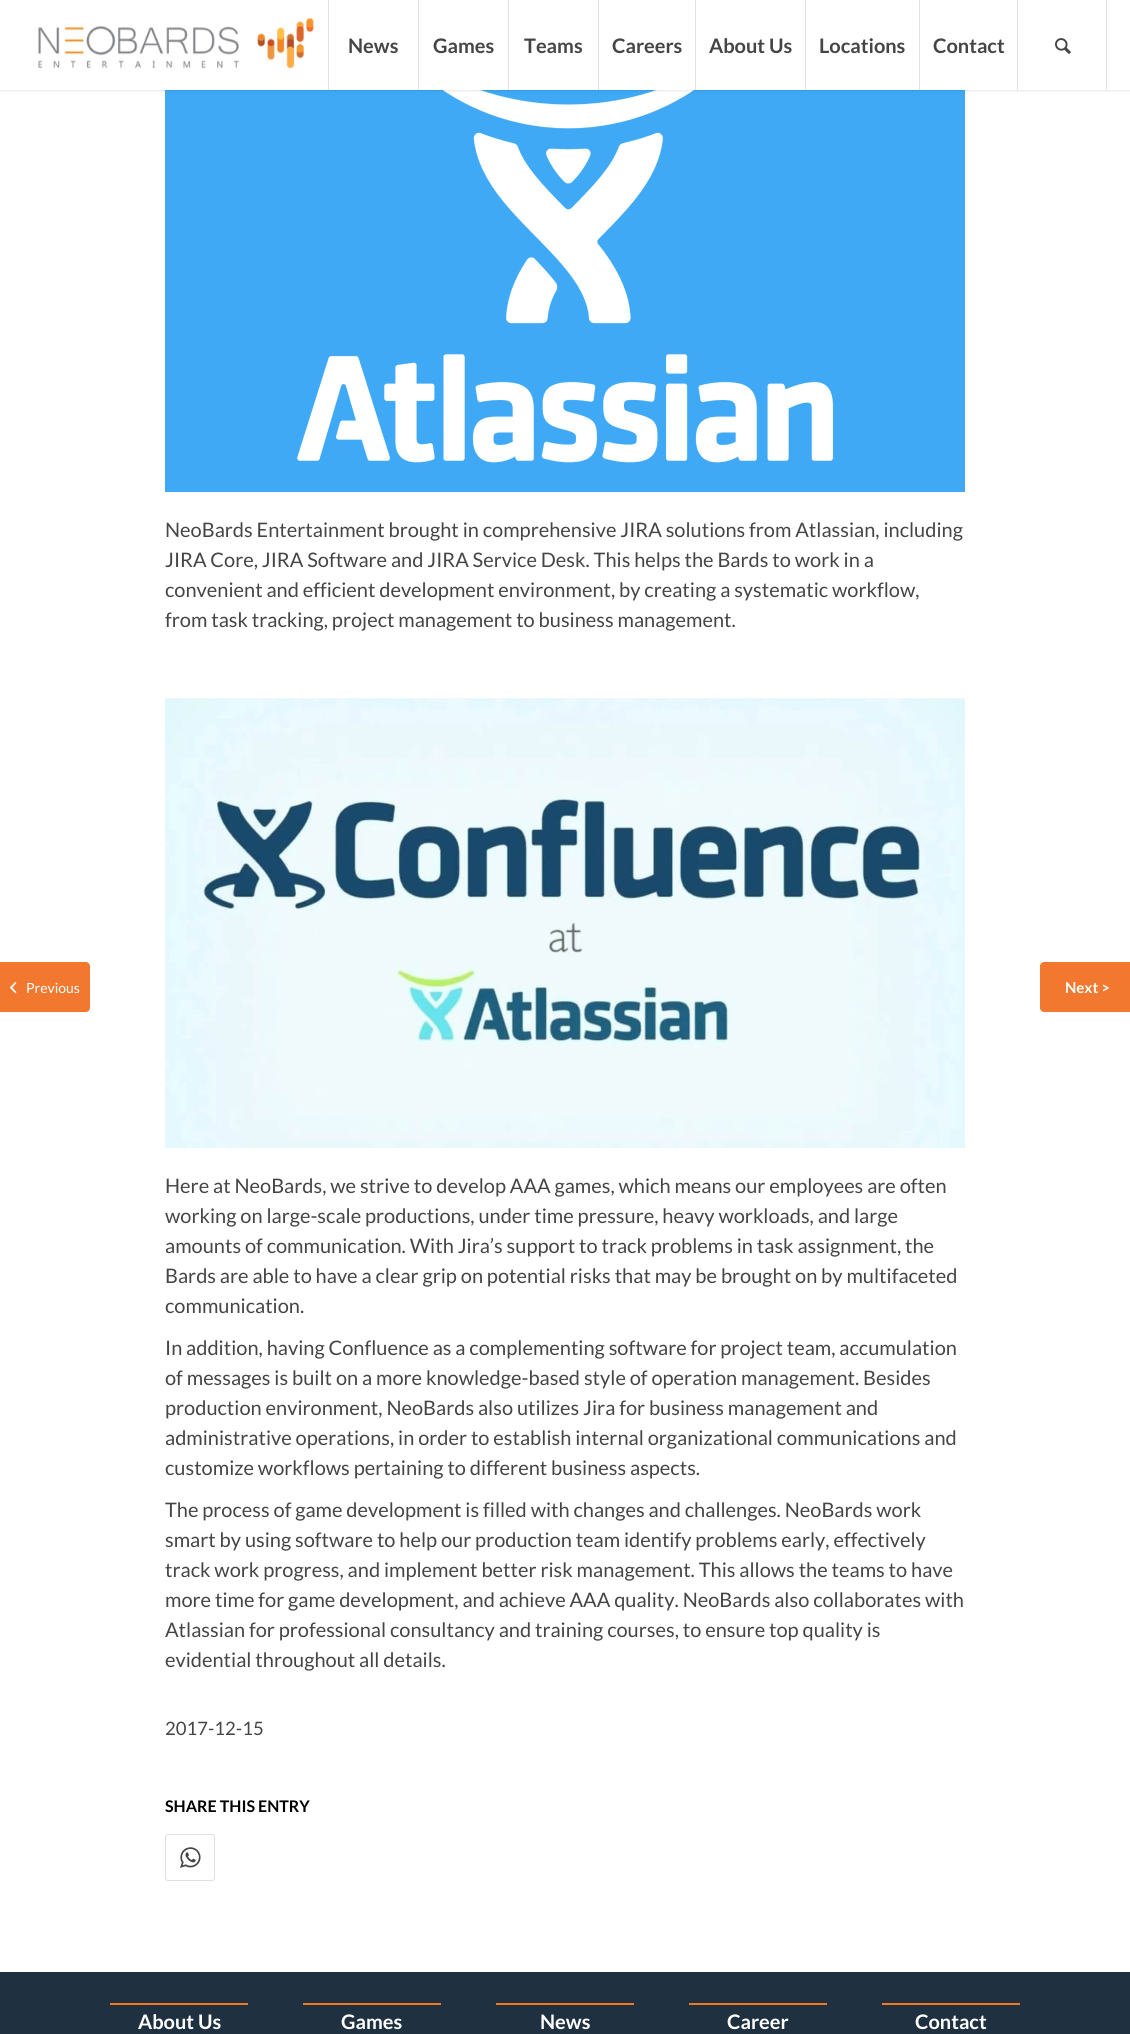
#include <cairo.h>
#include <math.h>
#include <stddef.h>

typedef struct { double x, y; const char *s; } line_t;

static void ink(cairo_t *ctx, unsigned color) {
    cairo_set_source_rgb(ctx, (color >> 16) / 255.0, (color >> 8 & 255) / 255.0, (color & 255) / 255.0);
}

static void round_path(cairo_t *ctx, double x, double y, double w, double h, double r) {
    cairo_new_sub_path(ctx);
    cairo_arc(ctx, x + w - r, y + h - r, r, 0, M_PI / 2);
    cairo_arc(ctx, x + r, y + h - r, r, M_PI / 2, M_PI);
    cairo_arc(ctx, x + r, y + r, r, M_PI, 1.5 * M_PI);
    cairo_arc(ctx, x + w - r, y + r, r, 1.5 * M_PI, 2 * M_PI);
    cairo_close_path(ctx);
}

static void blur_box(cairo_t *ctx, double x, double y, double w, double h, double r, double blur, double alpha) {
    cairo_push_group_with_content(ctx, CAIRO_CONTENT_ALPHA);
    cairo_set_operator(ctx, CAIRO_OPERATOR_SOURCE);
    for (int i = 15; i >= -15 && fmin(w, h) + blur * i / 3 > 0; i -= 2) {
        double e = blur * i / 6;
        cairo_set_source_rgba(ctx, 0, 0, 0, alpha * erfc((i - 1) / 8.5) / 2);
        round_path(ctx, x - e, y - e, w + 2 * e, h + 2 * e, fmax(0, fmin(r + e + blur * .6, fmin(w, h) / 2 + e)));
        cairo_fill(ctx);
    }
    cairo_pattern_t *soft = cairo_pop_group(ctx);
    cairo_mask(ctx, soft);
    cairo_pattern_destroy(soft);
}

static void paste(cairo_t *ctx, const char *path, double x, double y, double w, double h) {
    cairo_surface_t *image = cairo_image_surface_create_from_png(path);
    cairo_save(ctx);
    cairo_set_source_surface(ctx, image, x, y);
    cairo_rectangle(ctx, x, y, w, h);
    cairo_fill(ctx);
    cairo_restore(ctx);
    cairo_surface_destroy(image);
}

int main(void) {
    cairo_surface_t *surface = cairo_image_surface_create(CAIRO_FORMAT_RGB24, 1130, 2034);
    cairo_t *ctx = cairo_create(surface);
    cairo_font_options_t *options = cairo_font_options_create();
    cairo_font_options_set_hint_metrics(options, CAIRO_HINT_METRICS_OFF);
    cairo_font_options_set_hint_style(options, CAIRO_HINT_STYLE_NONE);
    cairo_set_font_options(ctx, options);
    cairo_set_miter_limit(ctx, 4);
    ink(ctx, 0xFFFFFF);
    cairo_paint(ctx);
    paste(ctx, "media/4.png", 165, 90, 800, 402);
    ink(ctx, 0x000000);
    blur_box(ctx, -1, -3, 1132, 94, 0, 1, 0.1);
    ink(ctx, 0xFFFFFF);
    cairo_rectangle(ctx, 0, 0, 1130, 90);
    cairo_fill(ctx);
    paste(ctx, "media/1.png", 38, 18, 276, 51);
    ink(ctx, 0xE1E1E1);
    cairo_rectangle(ctx, 328, 0, 1, 90);
    cairo_fill(ctx);
    cairo_select_font_face(ctx, "Lato", CAIRO_FONT_SLANT_NORMAL, CAIRO_FONT_WEIGHT_BOLD);
    cairo_set_font_size(ctx, 20);
    ink(ctx, 0x454545);
    cairo_move_to(ctx, 348, 53);
    cairo_show_text(ctx, "News");
    ink(ctx, 0xE1E1E1);
    cairo_rectangle(ctx, 418, 0, 1, 90);
    cairo_fill(ctx);
    ink(ctx, 0x454545);
    cairo_move_to(ctx, 433, 53);
    cairo_show_text(ctx, "Games");
    ink(ctx, 0xE1E1E1);
    cairo_rectangle(ctx, 508, 0, 1, 90);
    cairo_fill(ctx);
    ink(ctx, 0x454545);
    cairo_move_to(ctx, 524, 53);
    cairo_show_text(ctx, "Teams");
    ink(ctx, 0xE1E1E1);
    cairo_rectangle(ctx, 598, 0, 1, 90);
    cairo_fill(ctx);
    ink(ctx, 0x454545);
    cairo_move_to(ctx, 612, 53);
    cairo_show_text(ctx, "Careers");
    ink(ctx, 0xE1E1E1);
    cairo_rectangle(ctx, 695, 0, 1, 90);
    cairo_fill(ctx);
    ink(ctx, 0x454545);
    cairo_move_to(ctx, 709, 53);
    cairo_show_text(ctx, "About Us");
    ink(ctx, 0xE1E1E1);
    cairo_rectangle(ctx, 805, 0, 1, 90);
    cairo_fill(ctx);
    ink(ctx, 0x454545);
    cairo_move_to(ctx, 819, 53);
    cairo_show_text(ctx, "Locations");
    ink(ctx, 0xE1E1E1);
    cairo_rectangle(ctx, 919, 0, 1, 90);
    cairo_fill(ctx);
    ink(ctx, 0x454545);
    cairo_move_to(ctx, 933, 53);
    cairo_show_text(ctx, "Contact");
    ink(ctx, 0xE1E1E1);
    cairo_rectangle(ctx, 1106, 0, 1, 90);
    cairo_fill(ctx);
    cairo_rectangle(ctx, 1017, 0, 1, 90);
    cairo_fill(ctx);
    paste(ctx, "media/2.png", 1055, 38, 16, 16);
    ink(ctx, 0xF2782F);
    cairo_new_path(ctx);
    cairo_move_to(ctx, 0, 962);
    cairo_line_to(ctx, 86, 962);
    cairo_curve_to(ctx, 88, 962, 90, 964, 90, 966);
    cairo_line_to(ctx, 90, 1008);
    cairo_curve_to(ctx, 90, 1010, 88, 1012, 86, 1012);
    cairo_line_to(ctx, 0, 1012);
    cairo_close_path(ctx);
    cairo_fill(ctx);
    paste(ctx, "media/3.png", 10, 982, 7, 12);
    cairo_select_font_face(ctx, "Lato", CAIRO_FONT_SLANT_NORMAL, CAIRO_FONT_WEIGHT_NORMAL);
    cairo_set_font_size(ctx, 14);
    ink(ctx, 0xFFFFFF);
    cairo_move_to(ctx, 26, 993);
    cairo_show_text(ctx, "Previous");
    cairo_set_font_size(ctx, 20);
    ink(ctx, 0x454545);
    {
        static const line_t items[] = {
            {165, 537, "NeoBards Entertainment brought in comprehensive JIRA solutions from Atlassian, including"},
            {165, 567, "JIRA Core, JIRA Software and JIRA Service Desk. This helps the Bards to work in a"},
            {165, 597, "convenient and efficient development environment, by creating a systematic workflow,"},
            {165, 627, "from task tracking, project management to business management."},
        };
        for (size_t i = 0; i < sizeof items / sizeof *items; i++) {
            cairo_move_to(ctx, items[i].x, items[i].y);
            cairo_show_text(ctx, items[i].s);
        }
    }
    paste(ctx, "media/5.png", 165, 698, 800, 450);
    {
        static const line_t items[] = {
            {165, 1193, "Here at NeoBards, we strive to develop AAA games, which means our employees are often"},
            {165, 1223, "working on large-scale productions, under time pressure, heavy workloads, and large"},
            {165, 1253, "amounts of communication. With Jira’s support to track problems in task assignment, the"},
            {165, 1283, "Bards are able to have a clear grip on potential risks that may be brought on by multifaceted"},
            {165, 1313, "communication."},
            {165, 1355, "In addition, having Confluence as a complementing software for project team, accumulation"},
            {165, 1385, "of messages is built on a more knowledge-based style of operation management. Besides"},
            {165, 1415, "production environment, NeoBards also utilizes Jira for business management and"},
            {165, 1445, "administrative operations, in order to establish internal organizational communications and"},
            {165, 1475, "customize workflows pertaining to different business aspects."},
            {165, 1517, "The process of game development is filled with changes and challenges. NeoBards work"},
            {165, 1547, "smart by using software to help our production team identify problems early, effectively"},
            {165, 1577, "track work progress, and implement better risk management. This allows the teams to have"},
            {165, 1607, "more time for game development, and achieve AAA quality. NeoBards also collaborates with"},
            {165, 1637, "Atlassian for professional consultancy and training courses, to ensure top quality is"},
            {165, 1667, "evidential throughout all details."},
        };
        for (size_t i = 0; i < sizeof items / sizeof *items; i++) {
            cairo_move_to(ctx, items[i].x, items[i].y);
            cairo_show_text(ctx, items[i].s);
        }
    }
    cairo_set_font_size(ctx, 18.5);
    cairo_move_to(ctx, 165, 1735);
    cairo_show_text(ctx, "2017-12-15");
    cairo_select_font_face(ctx, "Lato", CAIRO_FONT_SLANT_NORMAL, CAIRO_FONT_WEIGHT_BOLD);
    cairo_set_font_size(ctx, 16);
    ink(ctx, 0x000000);
    cairo_move_to(ctx, 165, 1812);
    cairo_show_text(ctx, "SHARE THIS ENTRY");
    round_path(ctx, 165.5, 1834.5, 49, 46, 2.5);
    ink(ctx, 0xE1E1E1);
    cairo_set_line_width(ctx, 1);
    cairo_stroke(ctx);
    paste(ctx, "media/6.png", 180, 1847, 21, 21);
    ink(ctx, 0x1F3141);
    cairo_rectangle(ctx, 0, 1972, 1130, 62);
    cairo_fill(ctx);
    ink(ctx, 0xF4781F);
    cairo_rectangle(ctx, 110, 2003, 138, 2);
    cairo_fill(ctx);
    cairo_set_font_size(ctx, 20);
    ink(ctx, 0xFFFFFF);
    cairo_move_to(ctx, 138, 2029);
    cairo_show_text(ctx, "About Us");
    ink(ctx, 0xF4781F);
    cairo_rectangle(ctx, 303, 2003, 138, 2);
    cairo_fill(ctx);
    ink(ctx, 0xFFFFFF);
    cairo_move_to(ctx, 341, 2029);
    cairo_show_text(ctx, "Games");
    ink(ctx, 0xF4781F);
    cairo_rectangle(ctx, 496, 2003, 138, 2);
    cairo_fill(ctx);
    ink(ctx, 0xFFFFFF);
    cairo_move_to(ctx, 540, 2029);
    cairo_show_text(ctx, "News");
    ink(ctx, 0xF4781F);
    cairo_rectangle(ctx, 689, 2003, 138, 2);
    cairo_fill(ctx);
    ink(ctx, 0xFFFFFF);
    cairo_move_to(ctx, 727, 2029);
    cairo_show_text(ctx, "Career");
    ink(ctx, 0xF4781F);
    cairo_rectangle(ctx, 882, 2003, 138, 2);
    cairo_fill(ctx);
    ink(ctx, 0xFFFFFF);
    cairo_move_to(ctx, 915, 2029);
    cairo_show_text(ctx, "Contact");
    ink(ctx, 0xF2782F);
    cairo_new_path(ctx);
    cairo_move_to(ctx, 1044, 962);
    cairo_line_to(ctx, 1130, 962);
    cairo_line_to(ctx, 1130, 1012);
    cairo_line_to(ctx, 1044, 1012);
    cairo_curve_to(ctx, 1042, 1012, 1040, 1010, 1040, 1008);
    cairo_line_to(ctx, 1040, 966);
    cairo_curve_to(ctx, 1040, 964, 1042, 962, 1044, 962);
    cairo_close_path(ctx);
    cairo_fill(ctx);
    cairo_set_font_size(ctx, 15);
    ink(ctx, 0xFFFFFF);
    cairo_move_to(ctx, 1065, 993);
    cairo_show_text(ctx, "Next >");
    cairo_surface_write_to_png(surface, "image.png");
    cairo_font_options_destroy(options);
    cairo_destroy(ctx);
    cairo_surface_destroy(surface);
    return 0;
}
